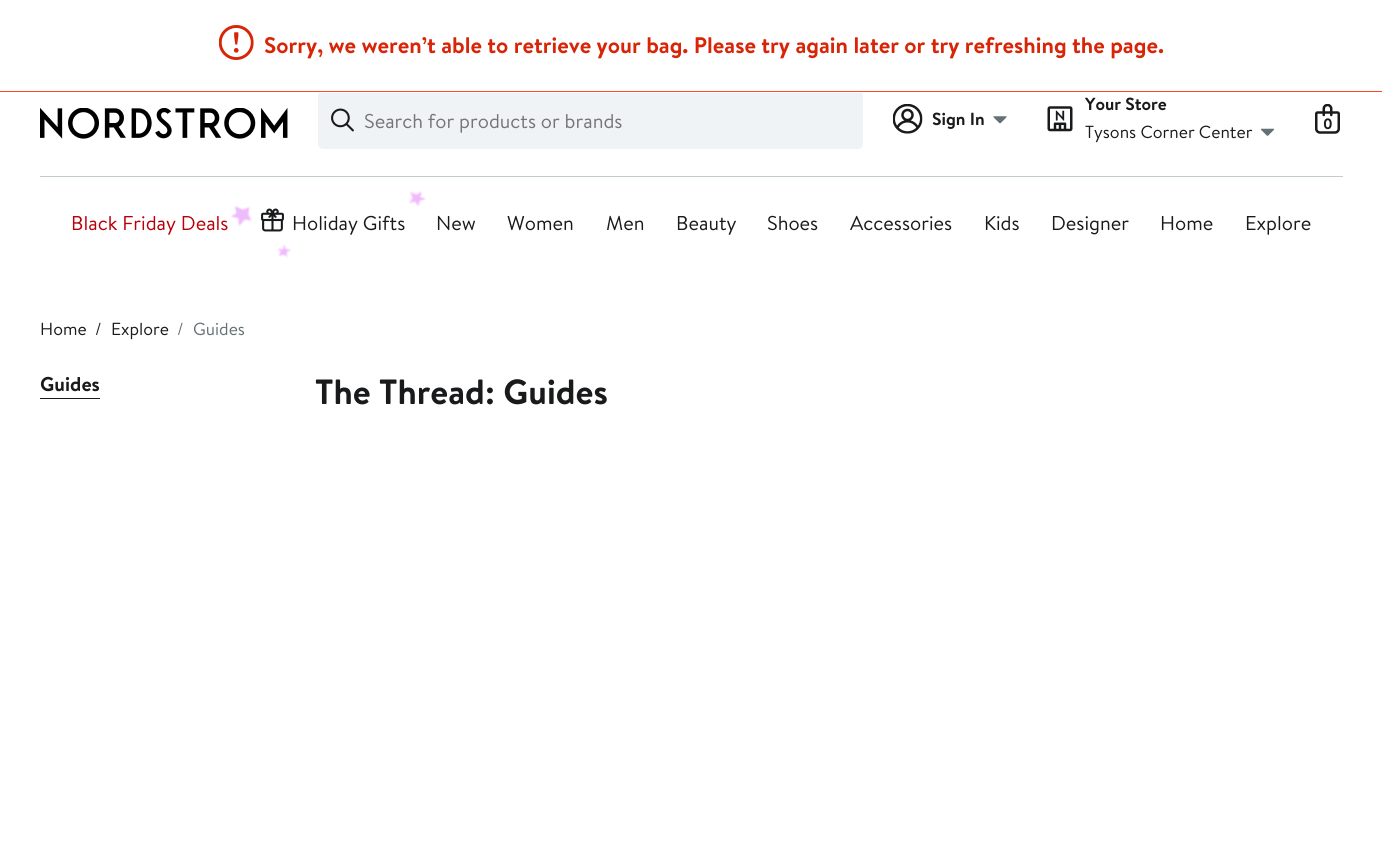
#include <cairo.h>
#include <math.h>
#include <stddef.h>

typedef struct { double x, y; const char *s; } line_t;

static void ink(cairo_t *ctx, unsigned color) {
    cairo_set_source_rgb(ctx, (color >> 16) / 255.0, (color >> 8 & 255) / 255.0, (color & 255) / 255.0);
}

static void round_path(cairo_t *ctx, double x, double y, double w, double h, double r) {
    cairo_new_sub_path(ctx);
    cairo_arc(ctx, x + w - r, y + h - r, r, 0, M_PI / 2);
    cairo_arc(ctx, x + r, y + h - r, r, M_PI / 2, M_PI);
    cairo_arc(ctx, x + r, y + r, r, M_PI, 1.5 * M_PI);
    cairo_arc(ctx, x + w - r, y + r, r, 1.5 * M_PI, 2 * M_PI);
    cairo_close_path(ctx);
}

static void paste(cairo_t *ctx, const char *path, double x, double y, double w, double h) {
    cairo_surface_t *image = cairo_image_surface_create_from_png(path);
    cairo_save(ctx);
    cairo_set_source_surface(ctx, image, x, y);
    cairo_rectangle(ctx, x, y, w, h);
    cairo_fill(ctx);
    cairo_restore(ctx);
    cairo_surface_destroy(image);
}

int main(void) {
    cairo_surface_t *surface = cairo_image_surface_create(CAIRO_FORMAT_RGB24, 1382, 843);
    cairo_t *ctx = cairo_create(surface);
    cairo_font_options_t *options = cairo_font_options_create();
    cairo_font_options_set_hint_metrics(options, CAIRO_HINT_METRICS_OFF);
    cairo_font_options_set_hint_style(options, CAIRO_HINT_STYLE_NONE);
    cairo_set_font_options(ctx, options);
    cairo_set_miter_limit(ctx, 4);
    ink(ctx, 0xFFFFFF);
    cairo_paint(ctx);
    ink(ctx, 0xF0F3F5);
    round_path(ctx, 318, 91, 545, 58, 5);
    cairo_fill(ctx);
    ink(ctx, 0xFFFFFF);
    cairo_rectangle(ctx, 319, 91, 543, 2);
    cairo_fill(ctx);
    ink(ctx, 0xFD4830);
    cairo_rectangle(ctx, 0, 91, 1382, 1);
    cairo_fill(ctx);
    paste(ctx, "media/1.png", 219, 25, 35, 35);
    cairo_select_font_face(ctx, "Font", CAIRO_FONT_SLANT_NORMAL, CAIRO_FONT_WEIGHT_BOLD);
    cairo_set_font_size(ctx, 22.5);
    ink(ctx, 0xD82508);
    cairo_move_to(ctx, 264, 53);
    cairo_show_text(ctx, "Sorry, we weren’t able to retrieve your bag. Please try again later or try refreshing the page.");
    paste(ctx, "media/2.png", 40, 108, 248, 31);
    paste(ctx, "media/3.png", 331, 108, 23, 24);
    cairo_select_font_face(ctx, "Font", CAIRO_FONT_SLANT_NORMAL, CAIRO_FONT_WEIGHT_NORMAL);
    cairo_set_font_size(ctx, 20);
    ink(ctx, 0x757575);
    cairo_move_to(ctx, 364, 128);
    cairo_show_text(ctx, "Search for products or brands");
    paste(ctx, "media/4.png", 893, 104, 30, 30);
    cairo_select_font_face(ctx, "Font", CAIRO_FONT_SLANT_NORMAL, CAIRO_FONT_WEIGHT_BOLD);
    cairo_set_font_size(ctx, 17.5);
    ink(ctx, 0x191A1B);
    cairo_move_to(ctx, 932, 125);
    cairo_show_text(ctx, "Sign In");
    paste(ctx, "media/5.png", 993, 116, 14, 8);
    paste(ctx, "media/6.png", 1047, 106, 26, 26);
    cairo_move_to(ctx, 1085, 110);
    cairo_show_text(ctx, "Your Store");
    cairo_select_font_face(ctx, "Font", CAIRO_FONT_SLANT_NORMAL, CAIRO_FONT_WEIGHT_NORMAL);
    cairo_move_to(ctx, 1085, 138);
    cairo_show_text(ctx, "Tysons Corner Center");
    paste(ctx, "media/7.png", 1260, 128, 15, 8);
    paste(ctx, "media/8.png", 1315, 104, 25, 30);
    cairo_select_font_face(ctx, "Font", CAIRO_FONT_SLANT_NORMAL, CAIRO_FONT_WEIGHT_BOLD);
    cairo_set_font_size(ctx, 15);
    cairo_move_to(ctx, 1323, 129);
    cairo_show_text(ctx, "0");
    ink(ctx, 0xC2CBCD);
    cairo_rectangle(ctx, 40, 176, 1303, 1);
    cairo_fill(ctx);
    cairo_select_font_face(ctx, "Font", CAIRO_FONT_SLANT_NORMAL, CAIRO_FONT_WEIGHT_NORMAL);
    cairo_set_font_size(ctx, 20);
    ink(ctx, 0xB80009);
    cairo_move_to(ctx, 71, 230);
    cairo_show_text(ctx, "Black Friday Deals");
    paste(ctx, "media/10.png", 261, 208, 23, 24);
    ink(ctx, 0x191A1B);
    cairo_move_to(ctx, 292, 230);
    cairo_show_text(ctx, "Holiday Gifts");
    paste(ctx, "media/9.png", 231, 191, 195, 67);
    {
        static const line_t items[] = {
            {436, 230, "New"},
            {507, 230, "Women"},
            {606, 230, "Men"},
            {676, 230, "Beauty"},
            {767, 230, "Shoes"},
            {850, 230, "Accessories"},
            {984, 230, "Kids"},
            {1051, 230, "Designer"},
            {1160, 230, "Home"},
            {1245, 230, "Explore"},
        };
        for (size_t i = 0; i < sizeof items / sizeof *items; i++) {
            cairo_move_to(ctx, items[i].x, items[i].y);
            cairo_show_text(ctx, items[i].s);
        }
    }
    cairo_set_font_size(ctx, 17.5);
    {
        static const line_t items[] = {
            {40, 335, "Home"},
            {95, 335, "/"},
            {111, 335, "Explore"},
        };
        for (size_t i = 0; i < sizeof items / sizeof *items; i++) {
            cairo_move_to(ctx, items[i].x, items[i].y);
            cairo_show_text(ctx, items[i].s);
        }
    }
    ink(ctx, 0x647175);
    cairo_move_to(ctx, 177, 335);
    cairo_show_text(ctx, "/");
    cairo_move_to(ctx, 193, 335);
    cairo_show_text(ctx, "Guides");
    cairo_select_font_face(ctx, "Font", CAIRO_FONT_SLANT_NORMAL, CAIRO_FONT_WEIGHT_BOLD);
    cairo_set_font_size(ctx, 20);
    ink(ctx, 0x191A1B);
    cairo_move_to(ctx, 40, 391);
    cairo_show_text(ctx, "Guides");
    cairo_rectangle(ctx, 40, 398, 60, 1);
    cairo_fill(ctx);
    cairo_set_font_size(ctx, 35);
    cairo_move_to(ctx, 315, 404);
    cairo_show_text(ctx, "The Thread: Guides");
    cairo_surface_write_to_png(surface, "image.png");
    cairo_font_options_destroy(options);
    cairo_destroy(ctx);
    cairo_surface_destroy(surface);
    return 0;
}
